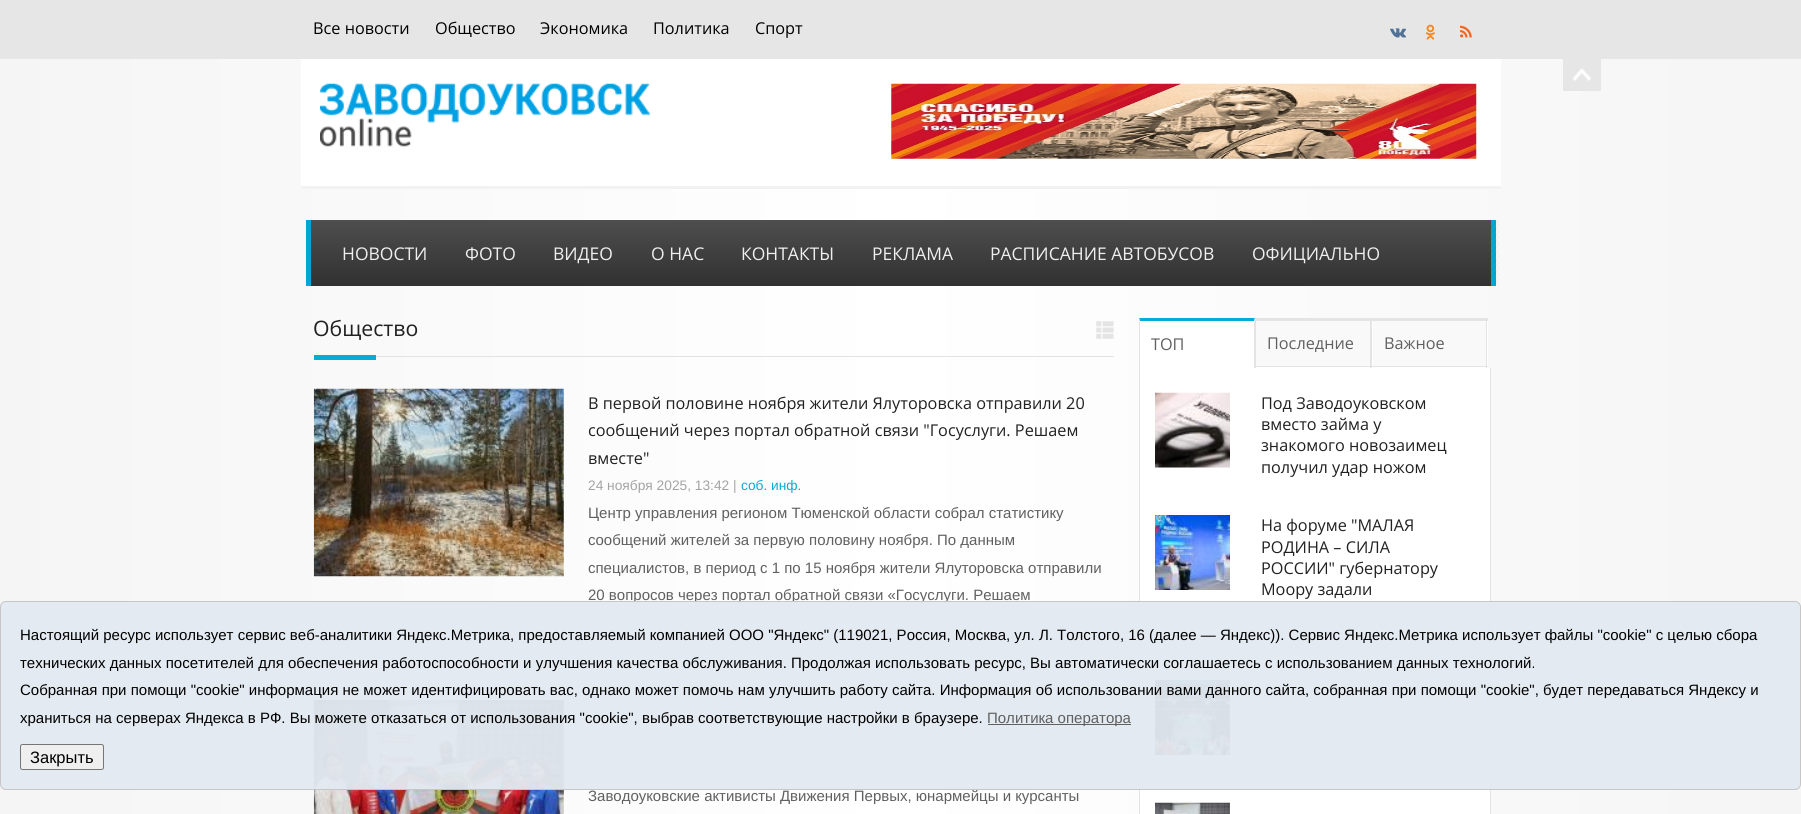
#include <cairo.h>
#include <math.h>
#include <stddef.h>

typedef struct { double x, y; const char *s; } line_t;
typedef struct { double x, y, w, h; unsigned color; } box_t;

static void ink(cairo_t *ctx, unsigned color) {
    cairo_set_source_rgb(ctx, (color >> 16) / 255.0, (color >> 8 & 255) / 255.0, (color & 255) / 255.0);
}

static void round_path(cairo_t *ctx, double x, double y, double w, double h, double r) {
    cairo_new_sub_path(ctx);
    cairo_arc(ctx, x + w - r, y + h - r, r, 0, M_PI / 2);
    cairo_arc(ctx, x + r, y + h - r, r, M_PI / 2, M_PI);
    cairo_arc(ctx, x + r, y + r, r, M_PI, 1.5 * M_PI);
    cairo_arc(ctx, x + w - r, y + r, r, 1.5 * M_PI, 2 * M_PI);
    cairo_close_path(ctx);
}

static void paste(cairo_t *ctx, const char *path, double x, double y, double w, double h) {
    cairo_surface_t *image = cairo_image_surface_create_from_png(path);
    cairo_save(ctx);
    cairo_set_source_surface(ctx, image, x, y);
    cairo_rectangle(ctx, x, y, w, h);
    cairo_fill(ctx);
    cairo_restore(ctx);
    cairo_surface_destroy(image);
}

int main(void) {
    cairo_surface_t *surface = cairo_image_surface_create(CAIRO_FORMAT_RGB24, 1801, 814);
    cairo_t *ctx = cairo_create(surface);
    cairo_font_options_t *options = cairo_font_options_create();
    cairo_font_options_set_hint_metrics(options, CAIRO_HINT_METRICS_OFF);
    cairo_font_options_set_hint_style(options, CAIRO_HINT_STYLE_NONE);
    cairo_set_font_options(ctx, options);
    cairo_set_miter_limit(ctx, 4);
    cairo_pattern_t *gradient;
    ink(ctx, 0xFFFFFF);
    cairo_paint(ctx);
    gradient = cairo_pattern_create_linear(0, 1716, 1801, 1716);
    cairo_pattern_add_color_stop_rgba(gradient, 0, 0.961, 0.961, 0.961, 1);
    cairo_pattern_add_color_stop_rgba(gradient, 0.5, 1, 1, 1, 1);
    cairo_pattern_add_color_stop_rgba(gradient, 1, 0.961, 0.961, 0.961, 1);
    cairo_set_source(ctx, gradient);
    cairo_pattern_destroy(gradient);
    cairo_rectangle(ctx, 0, 59, 1801, 755);
    cairo_fill(ctx);
    ink(ctx, 0xE6E6E6);
    cairo_rectangle(ctx, 0, 0, 1801, 59);
    cairo_fill(ctx);
    cairo_select_font_face(ctx, "Open Sans", CAIRO_FONT_SLANT_NORMAL, CAIRO_FONT_WEIGHT_NORMAL);
    cairo_set_font_size(ctx, 16.25);
    ink(ctx, 0x000000);
    {
        static const line_t items[] = {
            {313, 34, "Все новости"},
            {435, 34, "Общество"},
            {540, 34, "Экономика"},
            {653, 34, "Политика"},
            {755, 34, "Спорт"},
        };
        for (size_t i = 0; i < sizeof items / sizeof *items; i++) {
            cairo_move_to(ctx, items[i].x, items[i].y);
            cairo_show_text(ctx, items[i].s);
        }
    }
    paste(ctx, "media/1.png", 1390, 28, 16, 10);
    paste(ctx, "media/2.png", 1425, 24, 10, 16);
    paste(ctx, "media/3.png", 1460, 25, 12, 13);
    ink(ctx, 0xE6E6E6);
    cairo_rectangle(ctx, 1563, 59, 38, 32);
    cairo_fill(ctx);
    paste(ctx, "media/4.png", 1572, 68, 19, 13);
    ink(ctx, 0xFFFFFF);
    cairo_rectangle(ctx, 301, 59, 1200, 127);
    cairo_fill(ctx);
    ink(ctx, 0xF2F2F2);
    cairo_rectangle(ctx, 301, 186, 1200, 3);
    cairo_fill(ctx);
    paste(ctx, "media/5.png", 320, 83, 330, 64);
    paste(ctx, "media/6.png", 891, 83, 586, 76);
    gradient = cairo_pattern_create_linear(311, 286, 311, 220);
    cairo_pattern_add_color_stop_rgba(gradient, 0, 0.192, 0.192, 0.192, 1);
    cairo_pattern_add_color_stop_rgba(gradient, 1, 0.306, 0.306, 0.306, 1);
    cairo_set_source(ctx, gradient);
    cairo_pattern_destroy(gradient);
    cairo_rectangle(ctx, 311, 220, 1180, 66);
    cairo_fill(ctx);
    ink(ctx, 0x03A6D0);
    cairo_rectangle(ctx, 1491, 220, 5, 66);
    cairo_fill(ctx);
    cairo_rectangle(ctx, 306, 220, 5, 66);
    cairo_fill(ctx);
    paste(ctx, "media/7.png", 1491, 220, 8, 66);
    cairo_set_font_size(ctx, 17.5);
    ink(ctx, 0xEFEFEF);
    {
        static const line_t items[] = {
            {342, 260, "НОВОСТИ"},
            {465, 260, "ФОТО"},
            {553, 260, "ВИДЕО"},
            {651, 260, "О НАС"},
            {741, 260, "КОНТАКТЫ"},
            {872, 260, "РЕКЛАМА"},
            {990, 260, "РАСПИСАНИЕ АВТОБУСОВ"},
            {1252, 260, "ОФИЦИАЛЬНО"},
        };
        for (size_t i = 0; i < sizeof items / sizeof *items; i++) {
            cairo_move_to(ctx, items[i].x, items[i].y);
            cairo_show_text(ctx, items[i].s);
        }
    }
    ink(ctx, 0xE2E2E2);
    cairo_rectangle(ctx, 376, 356, 738, 1);
    cairo_fill(ctx);
    cairo_set_font_size(ctx, 21.25);
    ink(ctx, 0x212121);
    cairo_move_to(ctx, 313, 336);
    cairo_show_text(ctx, "Общество");
    paste(ctx, "media/8.png", 1096, 321, 18, 18);
    ink(ctx, 0x05ACD6);
    cairo_rectangle(ctx, 314, 355, 62, 5);
    cairo_fill(ctx);
    ink(ctx, 0xE5E5E5);
    cairo_rectangle(ctx, 314, 661, 800, 1);
    cairo_fill(ctx);
    paste(ctx, "media/9.png", 313, 388, 251, 189);
    cairo_set_font_size(ctx, 16.25);
    ink(ctx, 0x212121);
    {
        static const line_t items[] = {
            {588, 409, "В первой половине ноября жители Ялуторовска отправили 20"},
            {588, 436, "сообщений через портал обратной связи \"Госуслуги. Решаем"},
            {588, 464, "вместе\""},
        };
        for (size_t i = 0; i < sizeof items / sizeof *items; i++) {
            cairo_move_to(ctx, items[i].x, items[i].y);
            cairo_show_text(ctx, items[i].s);
        }
    }
    cairo_select_font_face(ctx, "Liberation Sans", CAIRO_FONT_SLANT_NORMAL, CAIRO_FONT_WEIGHT_NORMAL);
    cairo_set_font_size(ctx, 13.75);
    ink(ctx, 0xA4A4A4);
    cairo_move_to(ctx, 588, 490);
    cairo_show_text(ctx, "24 ноября 2025, 13:42 |");
    ink(ctx, 0x05ACD6);
    cairo_move_to(ctx, 741, 490);
    cairo_show_text(ctx, "соб. инф.");
    cairo_set_font_size(ctx, 15);
    ink(ctx, 0x606060);
    {
        static const line_t items[] = {
            {588, 518, "Центр управления регионом Тюменской области собрал статистику"},
            {588, 545, "сообщений жителей за первую половину ноября. По данным"},
            {588, 573, "специалистов, в период с 1 по 15 ноября жители Ялуторовска отправили"},
            {588, 600, "20 вопросов через портал обратной связи «Госуслуги. Решаем"},
        };
        for (size_t i = 0; i < sizeof items / sizeof *items; i++) {
            cairo_move_to(ctx, items[i].x, items[i].y);
            cairo_show_text(ctx, items[i].s);
        }
    }
    paste(ctx, "media/10.png", 313, 700, 251, 114);
    cairo_move_to(ctx, 588, 801);
    cairo_show_text(ctx, "Заводоуковские активисты Движения Первых, юнармейцы и курсанты");
    ink(ctx, 0xFFFFFF);
    cairo_rectangle(ctx, 1139, 318, 349, 50);
    cairo_fill(ctx);
    ink(ctx, 0x05ACD6);
    cairo_new_path(ctx);
    cairo_move_to(ctx, 1139, 318);
    cairo_line_to(ctx, 1255, 318);
    cairo_line_to(ctx, 1254, 321);
    cairo_line_to(ctx, 1140, 321);
    cairo_close_path(ctx);
    cairo_fill(ctx);
    ink(ctx, 0xE4E4E4);
    cairo_new_path(ctx);
    cairo_move_to(ctx, 1255, 318);
    cairo_line_to(ctx, 1255, 369);
    cairo_line_to(ctx, 1254, 368);
    cairo_line_to(ctx, 1254, 321);
    cairo_close_path(ctx);
    cairo_fill(ctx);
    cairo_new_path(ctx);
    cairo_move_to(ctx, 1139, 369);
    cairo_line_to(ctx, 1139, 318);
    cairo_line_to(ctx, 1140, 321);
    cairo_line_to(ctx, 1140, 368);
    cairo_close_path(ctx);
    cairo_fill(ctx);
    cairo_select_font_face(ctx, "Open Sans", CAIRO_FONT_SLANT_NORMAL, CAIRO_FONT_WEIGHT_NORMAL);
    cairo_set_font_size(ctx, 16.25);
    ink(ctx, 0x606060);
    cairo_move_to(ctx, 1151, 350);
    cairo_show_text(ctx, "ТОП");
    {
        static const box_t items[] = {
            {1256, 321, 114, 45, 0xF9F9F9},
            {1255, 318, 233, 3, 0xE4E4E4},
            {1370, 318, 1, 50, 0xE4E4E4},
            {1255, 366, 116, 1, 0xE4E4E4},
            {1255, 318, 1, 50, 0xE4E4E4},
        };
        for (size_t i = 0; i < sizeof items / sizeof *items; i++) {
            ink(ctx, items[i].color);
            cairo_rectangle(ctx, items[i].x, items[i].y, items[i].w, items[i].h);
            cairo_fill(ctx);
        }
    }
    ink(ctx, 0x606060);
    cairo_move_to(ctx, 1267, 349);
    cairo_show_text(ctx, "Последние");
    {
        static const box_t items[] = {
            {1373, 321, 113, 45, 0xF9F9F9},
            {1486, 318, 1, 50, 0xE4E4E4},
            {1371, 366, 117, 1, 0xE4E4E4},
            {1371, 318, 1, 50, 0xE4E4E4},
        };
        for (size_t i = 0; i < sizeof items / sizeof *items; i++) {
            ink(ctx, items[i].color);
            cairo_rectangle(ctx, items[i].x, items[i].y, items[i].w, items[i].h);
            cairo_fill(ctx);
        }
    }
    ink(ctx, 0x606060);
    cairo_move_to(ctx, 1384, 349);
    cairo_show_text(ctx, "Важное");
    {
        static const box_t items[] = {
            {1140, 368, 350, 446, 0xFFFFFF},
            {1490, 368, 1, 446, 0xE4E4E4},
            {1139, 368, 1, 446, 0xE4E4E4},
        };
        for (size_t i = 0; i < sizeof items / sizeof *items; i++) {
            ink(ctx, items[i].color);
            cairo_rectangle(ctx, items[i].x, items[i].y, items[i].w, items[i].h);
            cairo_fill(ctx);
        }
    }
    paste(ctx, "media/11.png", 1155, 392, 75, 76);
    ink(ctx, 0x212121);
    {
        static const line_t items[] = {
            {1261, 409, "Под Заводоуковском"},
            {1261, 430, "вместо займа у"},
            {1261, 451, "знакомого новозаимец"},
            {1261, 473, "получил удар ножом"},
        };
        for (size_t i = 0; i < sizeof items / sizeof *items; i++) {
            cairo_move_to(ctx, items[i].x, items[i].y);
            cairo_show_text(ctx, items[i].s);
        }
    }
    paste(ctx, "media/12.png", 1155, 515, 75, 75);
    {
        static const line_t items[] = {
            {1261, 531, "На форуме \"МАЛАЯ"},
            {1261, 553, "РОДИНА – СИЛА"},
            {1261, 574, "РОССИИ\" губернатору"},
            {1261, 595, "Моору задали"},
        };
        for (size_t i = 0; i < sizeof items / sizeof *items; i++) {
            cairo_move_to(ctx, items[i].x, items[i].y);
            cairo_show_text(ctx, items[i].s);
        }
    }
    paste(ctx, "media/13.png", 1155, 680, 75, 75);
    paste(ctx, "media/14.png", 1155, 802, 75, 12);
    cairo_set_source_rgba(ctx, 0.89, 0.914, 0.945, 0.95);
    round_path(ctx, 0.5, 601.5, 1800, 188, 5.5);
    cairo_fill_preserve(ctx);
    ink(ctx, 0xC6C6C6);
    cairo_set_line_width(ctx, 1);
    cairo_stroke(ctx);
    cairo_select_font_face(ctx, "Liberation Sans", CAIRO_FONT_SLANT_NORMAL, CAIRO_FONT_WEIGHT_NORMAL);
    cairo_set_font_size(ctx, 15);
    ink(ctx, 0x000000);
    {
        static const line_t items[] = {
            {20, 640, "Настоящий ресурс использует сервис веб-аналитики Яндекс.Метрика, предоставляемый компанией ООО \"Яндекс\" (119021, Россия, Москва, ул. Л. Толстого, 16 (далее — Яндекс)). Сервис Яндекс.Метрика использует файлы \"cookie\" с целью сбора"},
            {20, 668, "технических данных посетителей для обеспечения работоспособности и улучшения качества обслуживания. Продолжая использовать ресурс, Вы автоматически соглашаетесь с использованием данных технологий."},
            {20, 695, "Собранная при помощи \"cookie\" информация не может идентифицировать вас, однако может помочь нам улучшить работу сайта. Информация об использовании вами данного сайта, собранная при помощи \"cookie\", будет передаваться Яндексу и"},
            {20, 723, "храниться на серверах Яндекса в РФ. Вы можете отказаться от использования \"cookie\", выбрав соответствующие настройки в браузере."},
        };
        for (size_t i = 0; i < sizeof items / sizeof *items; i++) {
            cairo_move_to(ctx, items[i].x, items[i].y);
            cairo_show_text(ctx, items[i].s);
        }
    }
    ink(ctx, 0x606060);
    cairo_rectangle(ctx, 988, 724, 143, 1);
    cairo_fill(ctx);
    cairo_move_to(ctx, 987, 723);
    cairo_show_text(ctx, "Политика оператора");
    ink(ctx, 0xEFEFEF);
    round_path(ctx, 20.5, 744.5, 83, 25, 2);
    cairo_fill_preserve(ctx);
    ink(ctx, 0x767676);
    cairo_stroke(ctx);
    cairo_set_font_size(ctx, 16.5);
    ink(ctx, 0x000000);
    cairo_move_to(ctx, 30, 763);
    cairo_show_text(ctx, "Закрыть");
    cairo_surface_write_to_png(surface, "image.png");
    cairo_font_options_destroy(options);
    cairo_destroy(ctx);
    cairo_surface_destroy(surface);
    return 0;
}
